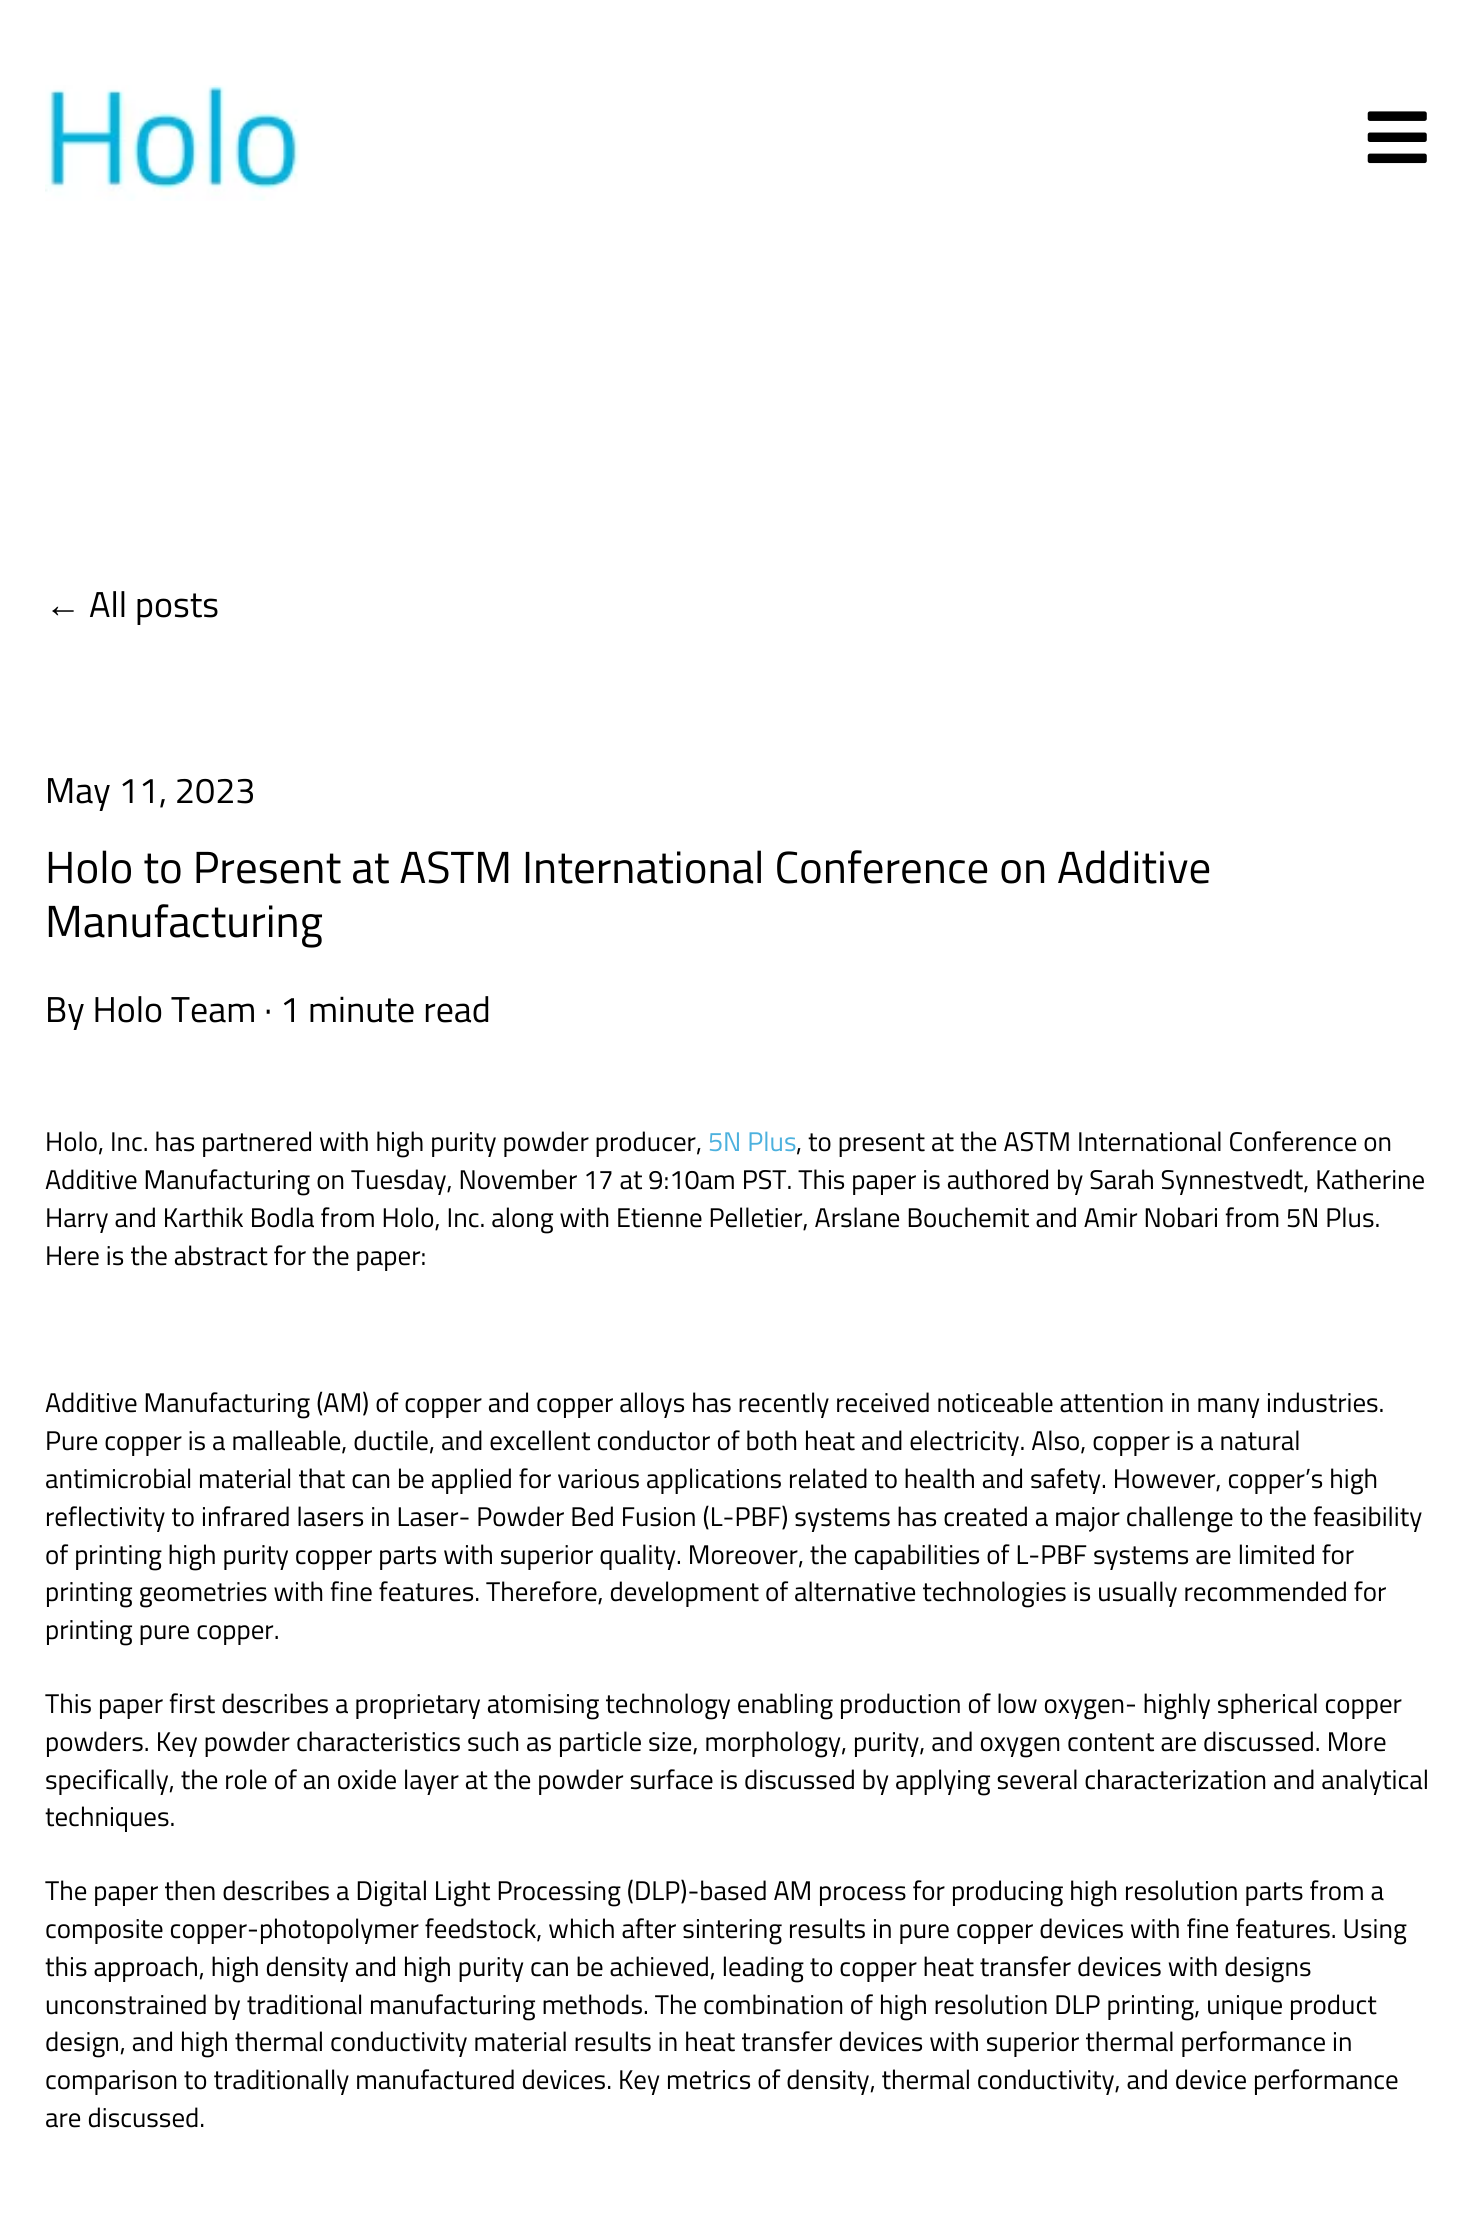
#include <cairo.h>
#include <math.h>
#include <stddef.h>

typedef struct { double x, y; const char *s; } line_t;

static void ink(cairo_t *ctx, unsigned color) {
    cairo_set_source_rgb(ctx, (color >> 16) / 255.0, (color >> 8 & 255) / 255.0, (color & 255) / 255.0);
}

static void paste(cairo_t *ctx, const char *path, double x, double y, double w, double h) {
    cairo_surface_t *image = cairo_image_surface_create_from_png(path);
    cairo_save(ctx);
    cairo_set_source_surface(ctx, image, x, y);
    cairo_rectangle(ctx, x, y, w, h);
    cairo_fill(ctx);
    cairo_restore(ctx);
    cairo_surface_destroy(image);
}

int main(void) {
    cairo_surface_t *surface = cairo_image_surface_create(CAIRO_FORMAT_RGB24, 1475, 2222);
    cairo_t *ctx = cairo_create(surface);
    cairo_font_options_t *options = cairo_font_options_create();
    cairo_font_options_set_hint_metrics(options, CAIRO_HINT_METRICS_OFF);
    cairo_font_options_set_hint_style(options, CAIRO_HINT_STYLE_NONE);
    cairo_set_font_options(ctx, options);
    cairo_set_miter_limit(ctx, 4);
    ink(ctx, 0xFFFFFF);
    cairo_paint(ctx);
    paste(ctx, "media/1.png", 45, 85, 255, 116);
    paste(ctx, "media/2.png", 1367, 111, 60, 53);
    cairo_select_font_face(ctx, "Liberation Sans", CAIRO_FONT_SLANT_NORMAL, CAIRO_FONT_WEIGHT_NORMAL);
    cairo_set_font_size(ctx, 36);
    ink(ctx, 0x000000);
    cairo_move_to(ctx, 45, 617);
    cairo_show_text(ctx, "←");
    cairo_select_font_face(ctx, "Titillium Web", CAIRO_FONT_SLANT_NORMAL, CAIRO_FONT_WEIGHT_NORMAL);
    cairo_move_to(ctx, 89, 617);
    cairo_show_text(ctx, "All posts");
    cairo_move_to(ctx, 45, 803);
    cairo_show_text(ctx, "May 11, 2023");
    cairo_set_font_size(ctx, 45);
    cairo_move_to(ctx, 45, 883);
    cairo_show_text(ctx, "Holo to Present at ASTM International Conference on Additive");
    cairo_move_to(ctx, 45, 937);
    cairo_show_text(ctx, "Manufacturing");
    cairo_set_font_size(ctx, 36);
    cairo_move_to(ctx, 45, 1022);
    cairo_show_text(ctx, "By Holo Team · 1 minute read");
    cairo_set_font_size(ctx, 27);
    cairo_move_to(ctx, 45, 1151);
    cairo_show_text(ctx, "Holo, Inc. has partnered with high purity powder producer,");
    ink(ctx, 0x4CB1DE);
    cairo_move_to(ctx, 708, 1151);
    cairo_show_text(ctx, "5N Plus");
    ink(ctx, 0x000000);
    {
        static const line_t items[] = {
            {796, 1151, ", to present at the ASTM International Conference on"},
            {45, 1189, "Additive Manufacturing on Tuesday, November 17 at 9:10am PST. This paper is authored by Sarah Synnestvedt, Katherine"},
            {45, 1227, "Harry and Karthik Bodla from Holo, Inc. along with Etienne Pelletier, Arslane Bouchemit and Amir Nobari from 5N Plus."},
            {45, 1265, "Here is the abstract for the paper:"},
            {45, 1412, "Additive Manufacturing (AM) of copper and copper alloys has recently received noticeable attention in many industries."},
            {45, 1450, "Pure copper is a malleable, ductile, and excellent conductor of both heat and electricity. Also, copper is a natural"},
            {45, 1488, "antimicrobial material that can be applied for various applications related to health and safety. However, copper’s high"},
            {45, 1526, "reflectivity to infrared lasers in Laser- Powder Bed Fusion (L-PBF) systems has created a major challenge to the feasibility"},
            {45, 1564, "of printing high purity copper parts with superior quality. Moreover, the capabilities of L-PBF systems are limited for"},
            {45, 1601, "printing geometries with fine features. Therefore, development of alternative technologies is usually recommended for"},
            {45, 1639, "printing pure copper."},
            {45, 1713, "This paper first describes a proprietary atomising technology enabling production of low oxygen- highly spherical copper"},
            {45, 1751, "powders. Key powder characteristics such as particle size, morphology, purity, and oxygen content are discussed. More"},
            {45, 1789, "specifically, the role of an oxide layer at the powder surface is discussed by applying several characterization and analytical"},
            {45, 1826, "techniques."},
            {45, 1900, "The paper then describes a Digital Light Processing (DLP)-based AM process for producing high resolution parts from a"},
            {45, 1938, "composite copper-photopolymer feedstock, which after sintering results in pure copper devices with fine features. Using"},
            {45, 1976, "this approach, high density and high purity can be achieved, leading to copper heat transfer devices with designs"},
            {45, 2014, "unconstrained by traditional manufacturing methods. The combination of high resolution DLP printing, unique product"},
            {45, 2051, "design, and high thermal conductivity material results in heat transfer devices with superior thermal performance in"},
            {45, 2089, "comparison to traditionally manufactured devices. Key metrics of density, thermal conductivity, and device performance"},
            {45, 2127, "are discussed."},
        };
        for (size_t i = 0; i < sizeof items / sizeof *items; i++) {
            cairo_move_to(ctx, items[i].x, items[i].y);
            cairo_show_text(ctx, items[i].s);
        }
    }
    cairo_surface_write_to_png(surface, "image.png");
    cairo_font_options_destroy(options);
    cairo_destroy(ctx);
    cairo_surface_destroy(surface);
    return 0;
}
